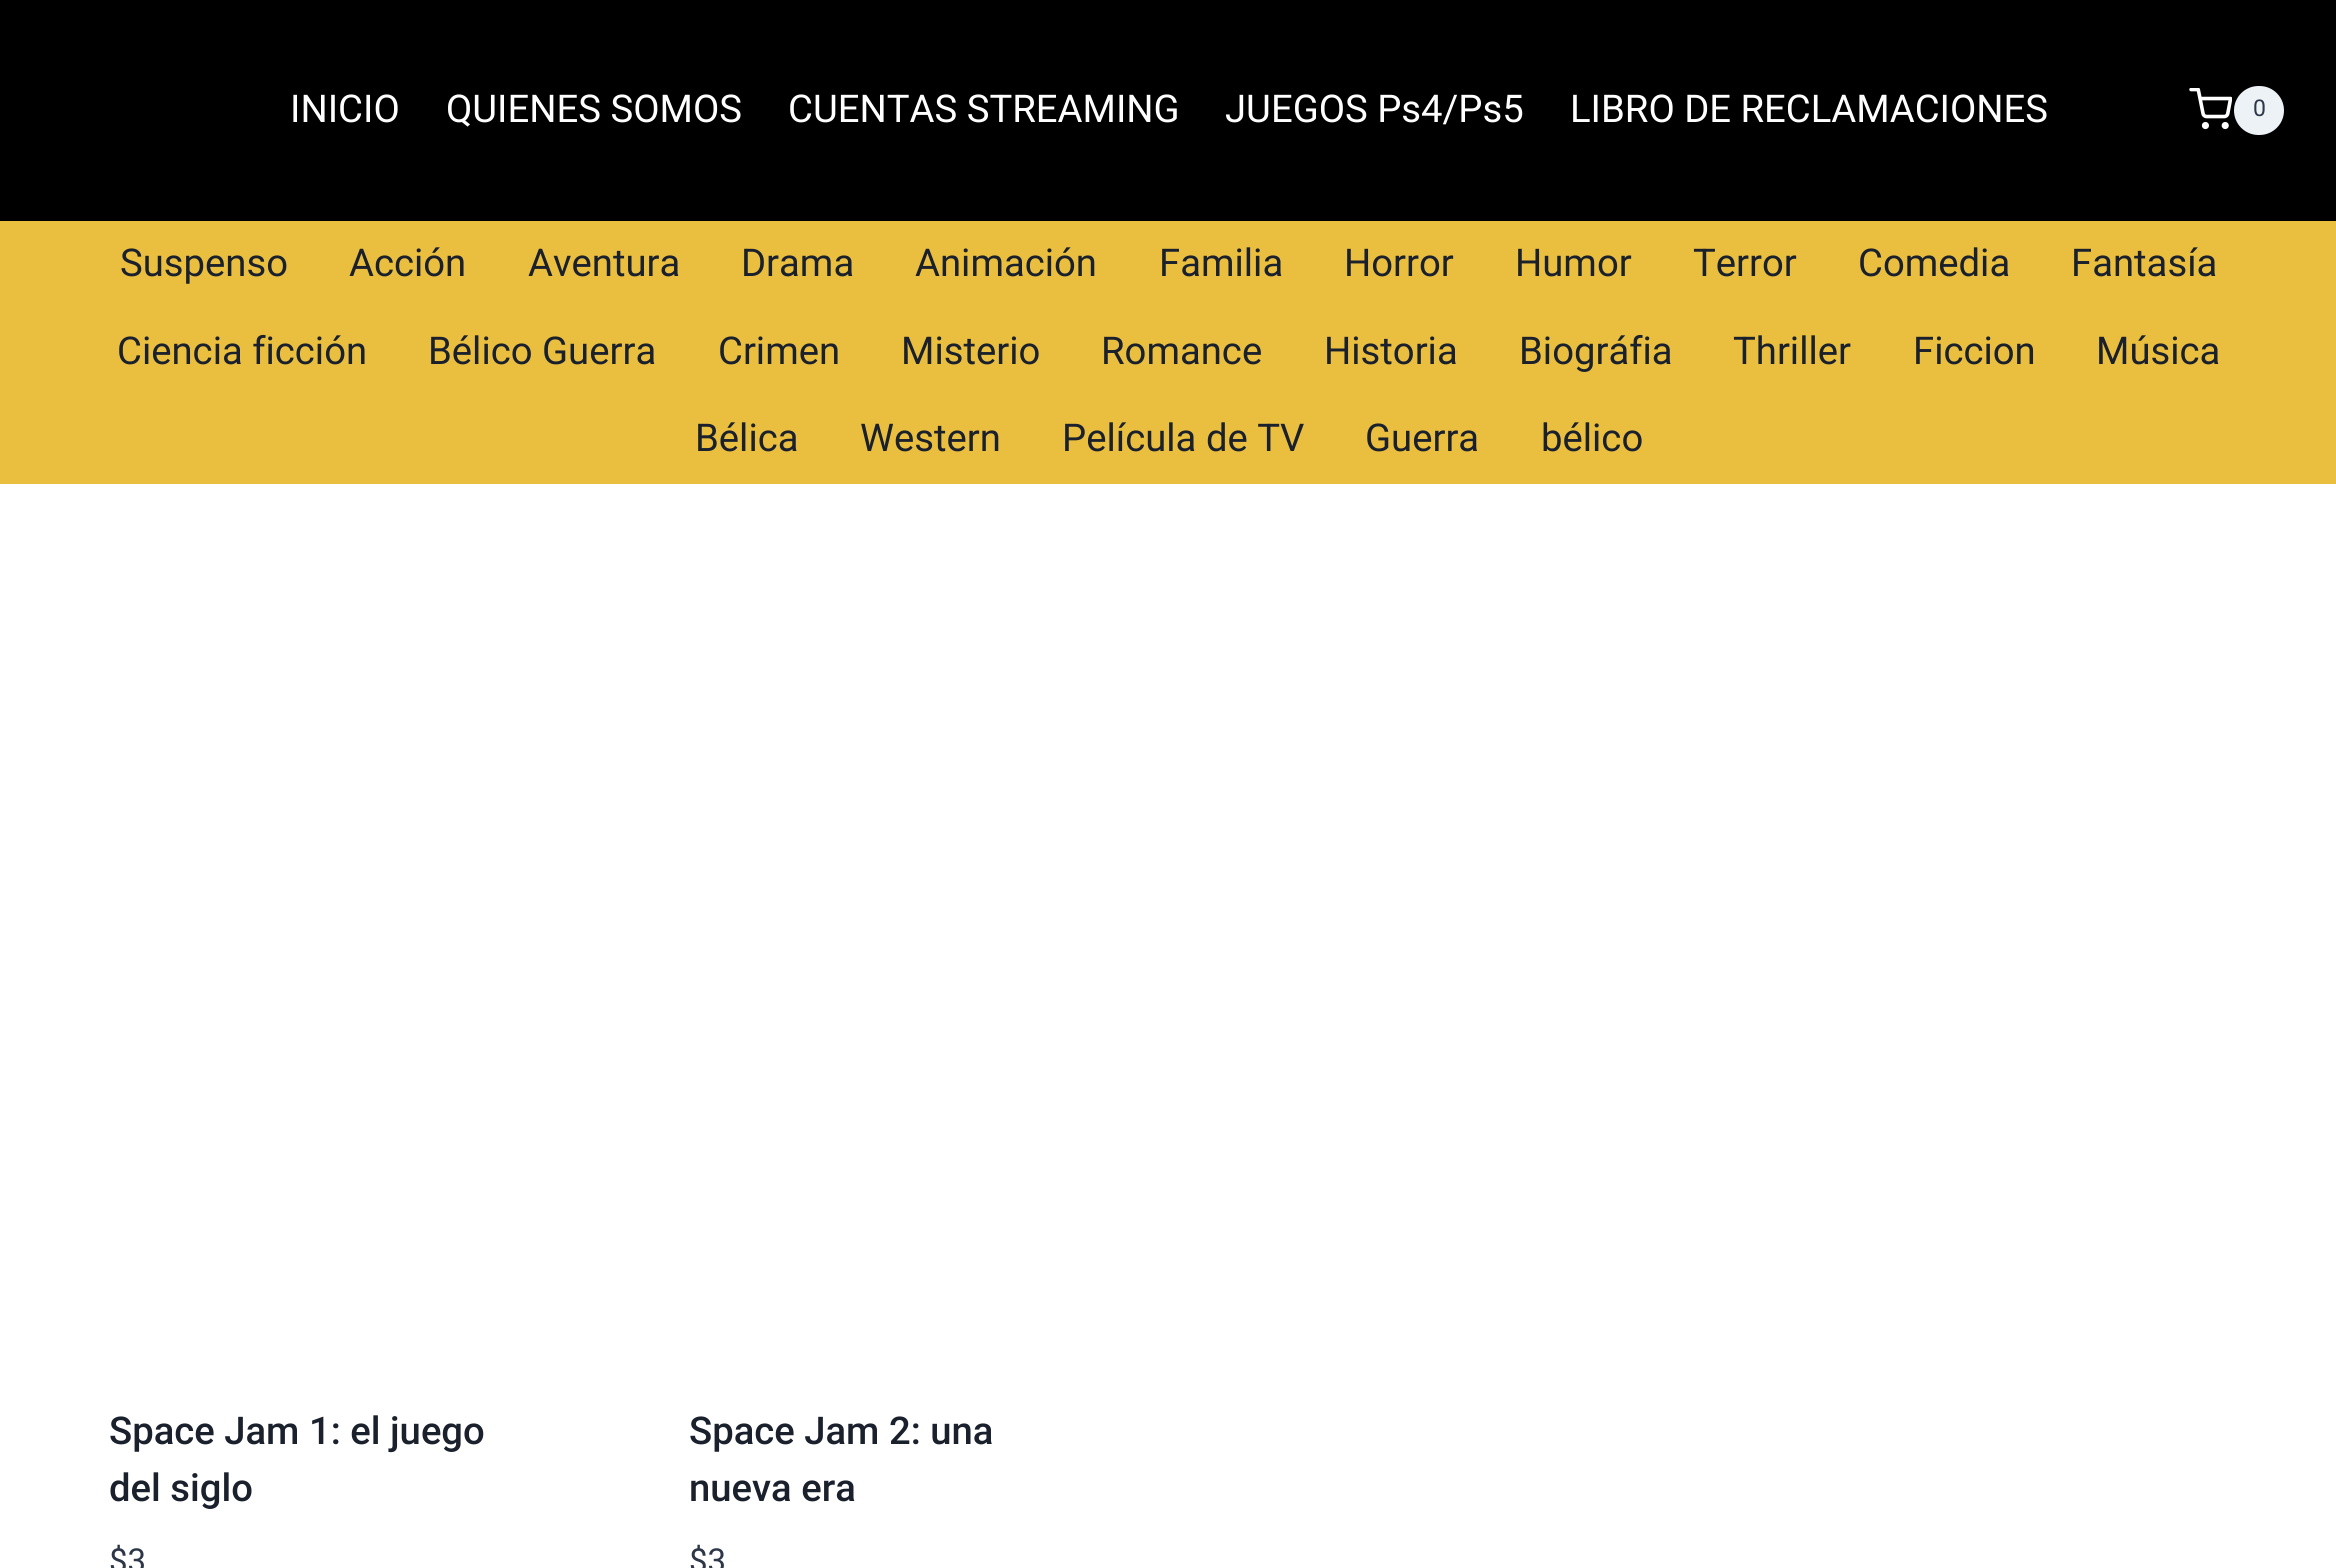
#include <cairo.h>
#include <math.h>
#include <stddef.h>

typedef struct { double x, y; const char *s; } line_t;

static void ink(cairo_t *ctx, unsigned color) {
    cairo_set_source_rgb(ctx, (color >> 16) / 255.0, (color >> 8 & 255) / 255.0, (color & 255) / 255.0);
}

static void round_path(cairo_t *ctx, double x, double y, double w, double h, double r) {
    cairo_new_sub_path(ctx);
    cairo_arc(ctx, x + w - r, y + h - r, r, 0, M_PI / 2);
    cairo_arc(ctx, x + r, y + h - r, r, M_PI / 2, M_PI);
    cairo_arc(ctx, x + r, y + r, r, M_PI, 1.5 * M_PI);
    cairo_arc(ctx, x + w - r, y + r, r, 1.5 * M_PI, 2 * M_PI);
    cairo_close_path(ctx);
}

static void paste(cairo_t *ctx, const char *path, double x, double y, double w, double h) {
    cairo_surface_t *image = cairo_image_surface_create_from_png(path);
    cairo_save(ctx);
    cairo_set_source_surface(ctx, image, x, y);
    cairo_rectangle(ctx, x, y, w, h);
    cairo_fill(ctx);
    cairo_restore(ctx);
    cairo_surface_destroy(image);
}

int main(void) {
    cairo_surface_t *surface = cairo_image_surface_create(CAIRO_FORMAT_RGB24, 2336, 1568);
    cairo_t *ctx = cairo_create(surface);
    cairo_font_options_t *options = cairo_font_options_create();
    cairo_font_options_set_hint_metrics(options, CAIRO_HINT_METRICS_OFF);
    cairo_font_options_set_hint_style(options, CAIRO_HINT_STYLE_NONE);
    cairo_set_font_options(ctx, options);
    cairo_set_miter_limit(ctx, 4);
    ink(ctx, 0xFFFFFF);
    cairo_paint(ctx);
    ink(ctx, 0x000000);
    cairo_rectangle(ctx, 0, 0, 2336, 221);
    cairo_fill(ctx);
    cairo_select_font_face(ctx, "Roboto", CAIRO_FONT_SLANT_NORMAL, CAIRO_FONT_WEIGHT_NORMAL);
    cairo_set_font_size(ctx, 38.25);
    ink(ctx, 0xFFFFFF);
    {
        static const line_t items[] = {
            {290, 122, "INICIO"},
            {446, 122, "QUIENES SOMOS"},
            {788, 122, "CUENTAS STREAMING"},
            {1225, 122, "JUEGOS Ps4/Ps5"},
            {1570, 122, "LIBRO DE RECLAMACIONES"},
        };
        for (size_t i = 0; i < sizeof items / sizeof *items; i++) {
            cairo_move_to(ctx, items[i].x, items[i].y);
            cairo_show_text(ctx, items[i].s);
        }
    }
    paste(ctx, "media/1.png", 2189, 88, 43, 42);
    ink(ctx, 0xEDF2F7);
    round_path(ctx, 2234, 86, 50, 49, 24.5);
    cairo_fill(ctx);
    cairo_set_font_size(ctx, 23);
    ink(ctx, 0x2D3748);
    cairo_move_to(ctx, 2253, 116);
    cairo_show_text(ctx, "0");
    ink(ctx, 0xEABE3F);
    cairo_rectangle(ctx, 0, 221, 2336, 263);
    cairo_fill(ctx);
    cairo_set_font_size(ctx, 38.25);
    ink(ctx, 0x1A202C);
    {
        static const line_t items[] = {
            {120, 276, "Suspenso"},
            {349, 276, "Acción"},
            {528, 276, "Aventura"},
            {741, 276, "Drama"},
            {915, 276, "Animación"},
            {1159, 276, "Familia"},
            {1344, 276, "Horror"},
            {1515, 276, "Humor"},
            {1693, 276, "Terror"},
            {1858, 276, "Comedia"},
            {2071, 276, "Fantasía"},
            {117, 364, "Ciencia ficción"},
            {428, 364, "Bélico Guerra"},
            {718, 364, "Crimen"},
            {901, 364, "Misterio"},
            {1101, 364, "Romance"},
            {1324, 364, "Historia"},
            {1519, 364, "Biográfia"},
            {1733, 364, "Thriller"},
            {1913, 364, "Ficcion"},
            {2096, 364, "Música"},
            {695, 451, "Bélica"},
            {860, 451, "Western"},
            {1062, 451, "Película de TV"},
            {1365, 451, "Guerra"},
            {1541, 451, "bélico"},
        };
        for (size_t i = 0; i < sizeof items / sizeof *items; i++) {
            cairo_move_to(ctx, items[i].x, items[i].y);
            cairo_show_text(ctx, items[i].s);
        }
    }
    cairo_select_font_face(ctx, "Roboto Medium", CAIRO_FONT_SLANT_NORMAL, CAIRO_FONT_WEIGHT_NORMAL);
    cairo_move_to(ctx, 109, 1444);
    cairo_show_text(ctx, "Space Jam 1: el juego");
    cairo_move_to(ctx, 109, 1501);
    cairo_show_text(ctx, "del siglo");
    cairo_select_font_face(ctx, "Roboto", CAIRO_FONT_SLANT_NORMAL, CAIRO_FONT_WEIGHT_NORMAL);
    cairo_set_font_size(ctx, 33);
    ink(ctx, 0x2D3748);
    cairo_move_to(ctx, 109, 1572);
    cairo_show_text(ctx, "$3");
    cairo_select_font_face(ctx, "Roboto Medium", CAIRO_FONT_SLANT_NORMAL, CAIRO_FONT_WEIGHT_NORMAL);
    cairo_set_font_size(ctx, 38.25);
    ink(ctx, 0x1A202C);
    cairo_move_to(ctx, 689, 1444);
    cairo_show_text(ctx, "Space Jam 2: una");
    cairo_move_to(ctx, 689, 1501);
    cairo_show_text(ctx, "nueva era");
    cairo_select_font_face(ctx, "Roboto", CAIRO_FONT_SLANT_NORMAL, CAIRO_FONT_WEIGHT_NORMAL);
    cairo_set_font_size(ctx, 33);
    ink(ctx, 0x2D3748);
    cairo_move_to(ctx, 689, 1572);
    cairo_show_text(ctx, "$3");
    cairo_surface_write_to_png(surface, "image.png");
    cairo_font_options_destroy(options);
    cairo_destroy(ctx);
    cairo_surface_destroy(surface);
    return 0;
}
